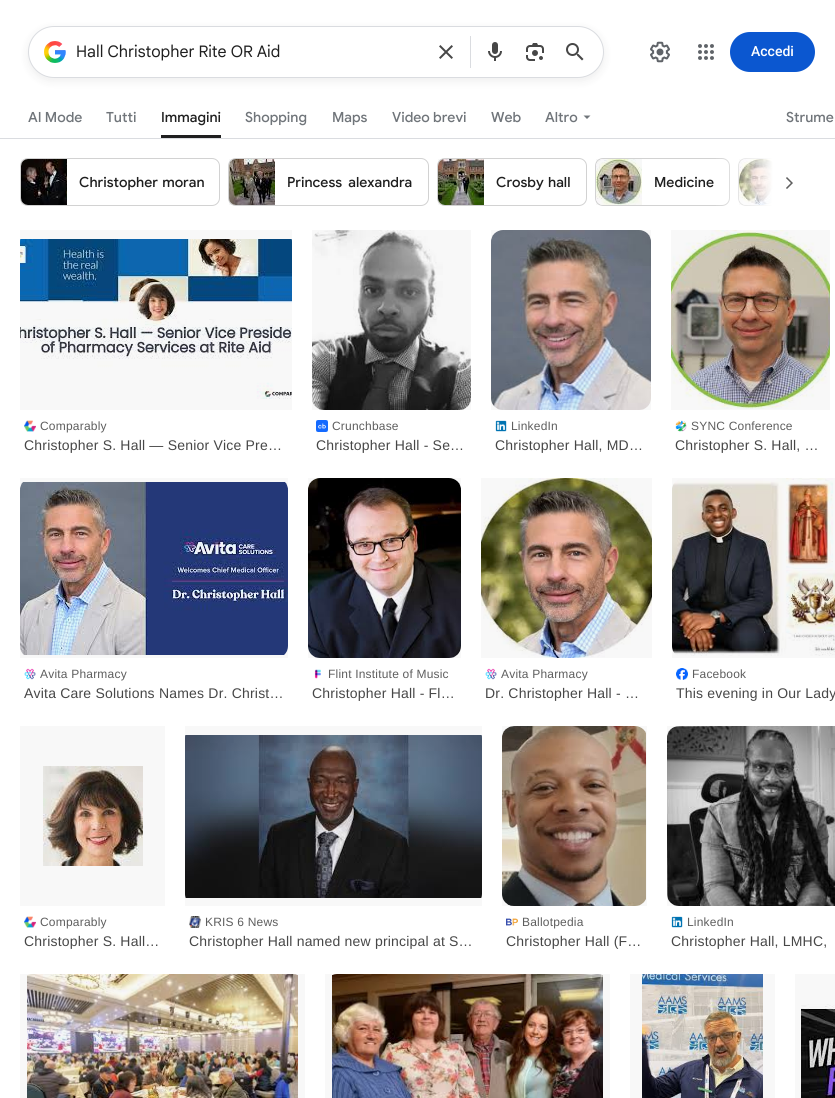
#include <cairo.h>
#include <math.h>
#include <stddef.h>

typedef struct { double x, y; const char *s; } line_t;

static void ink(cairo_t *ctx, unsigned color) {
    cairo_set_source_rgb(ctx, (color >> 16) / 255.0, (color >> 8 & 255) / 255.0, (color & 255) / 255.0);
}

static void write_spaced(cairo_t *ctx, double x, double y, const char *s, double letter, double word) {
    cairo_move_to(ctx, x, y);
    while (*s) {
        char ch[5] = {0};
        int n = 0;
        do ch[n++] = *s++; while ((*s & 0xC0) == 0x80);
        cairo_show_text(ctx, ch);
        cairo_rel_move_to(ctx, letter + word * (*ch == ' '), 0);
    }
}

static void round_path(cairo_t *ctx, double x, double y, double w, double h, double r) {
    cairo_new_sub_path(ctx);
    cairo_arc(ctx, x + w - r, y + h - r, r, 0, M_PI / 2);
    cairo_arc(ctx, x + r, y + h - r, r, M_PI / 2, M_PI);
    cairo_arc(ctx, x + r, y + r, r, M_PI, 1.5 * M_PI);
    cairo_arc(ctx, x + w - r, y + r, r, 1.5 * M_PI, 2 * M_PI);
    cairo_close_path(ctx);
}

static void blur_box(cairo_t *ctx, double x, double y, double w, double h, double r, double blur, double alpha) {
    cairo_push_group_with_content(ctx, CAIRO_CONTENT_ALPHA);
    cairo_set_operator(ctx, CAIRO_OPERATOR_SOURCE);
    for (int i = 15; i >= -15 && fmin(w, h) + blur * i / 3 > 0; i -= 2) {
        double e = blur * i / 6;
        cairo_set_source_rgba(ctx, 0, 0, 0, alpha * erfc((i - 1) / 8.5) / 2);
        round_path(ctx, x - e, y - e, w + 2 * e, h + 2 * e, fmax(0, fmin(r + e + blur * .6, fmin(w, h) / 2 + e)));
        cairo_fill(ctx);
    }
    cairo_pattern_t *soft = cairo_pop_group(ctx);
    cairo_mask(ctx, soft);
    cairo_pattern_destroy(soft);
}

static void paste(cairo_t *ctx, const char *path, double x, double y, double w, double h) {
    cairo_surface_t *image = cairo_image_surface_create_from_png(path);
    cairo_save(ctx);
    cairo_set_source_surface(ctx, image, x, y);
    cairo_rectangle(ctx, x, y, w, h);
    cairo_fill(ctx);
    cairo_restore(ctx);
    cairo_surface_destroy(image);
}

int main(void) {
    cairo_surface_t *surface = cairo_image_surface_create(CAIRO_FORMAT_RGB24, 835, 1098);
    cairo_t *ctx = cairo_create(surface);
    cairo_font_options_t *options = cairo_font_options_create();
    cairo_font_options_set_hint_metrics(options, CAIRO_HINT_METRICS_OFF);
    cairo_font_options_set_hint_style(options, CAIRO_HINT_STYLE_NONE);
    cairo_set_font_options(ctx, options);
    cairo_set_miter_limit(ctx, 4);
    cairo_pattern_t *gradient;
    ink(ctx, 0xFFFFFF);
    cairo_paint(ctx);
    ink(ctx, 0x1F1F1F);
    blur_box(ctx, 28, 29, 576, 52, 26, 5, 0.08);
    ink(ctx, 0xFFFFFF);
    round_path(ctx, 28.5, 26.5, 575, 51, 25.5);
    cairo_fill_preserve(ctx);
    ink(ctx, 0xDADCE0);
    cairo_set_line_width(ctx, 1);
    cairo_stroke(ctx);
    paste(ctx, "media/1.png", 44, 41, 22, 22);
    cairo_select_font_face(ctx, "Google Sans", CAIRO_FONT_SLANT_NORMAL, CAIRO_FONT_WEIGHT_NORMAL);
    cairo_set_font_size(ctx, 16);
    ink(ctx, 0x1F1F1F);
    cairo_move_to(ctx, 76, 57);
    cairo_show_text(ctx, "Hall Christopher Rite OR Aid");
    paste(ctx, "media/2.png", 439, 45, 14, 14);
    ink(ctx, 0xDADCE0);
    cairo_rectangle(ctx, 470, 36, 1, 32);
    cairo_fill(ctx);
    paste(ctx, "media/3.png", 488, 42, 14, 19);
    paste(ctx, "media/4.png", 526, 43, 18, 18);
    paste(ctx, "media/5.png", 566, 43, 18, 18);
    paste(ctx, "media/6.png", 650, 41, 20, 22);
    paste(ctx, "media/7.png", 698, 44, 16, 16);
    ink(ctx, 0x0B57D0);
    round_path(ctx, 730, 32, 85, 40, 20);
    cairo_fill(ctx);
    cairo_select_font_face(ctx, "Roboto Medium", CAIRO_FONT_SLANT_NORMAL, CAIRO_FONT_WEIGHT_NORMAL);
    cairo_set_font_size(ctx, 14);
    ink(ctx, 0xFFFFFF);
    cairo_move_to(ctx, 751, 56);
    cairo_show_text(ctx, "Accedi");
    cairo_select_font_face(ctx, "Google Sans Medium", CAIRO_FONT_SLANT_NORMAL, CAIRO_FONT_WEIGHT_NORMAL);
    ink(ctx, 0x70757A);
    cairo_move_to(ctx, 28, 122);
    cairo_show_text(ctx, "AI Mode");
    cairo_move_to(ctx, 106, 122);
    cairo_show_text(ctx, "Tutti");
    ink(ctx, 0x1F1F1F);
    cairo_rectangle(ctx, 161, 135, 60, 3);
    cairo_fill(ctx);
    cairo_move_to(ctx, 161, 122);
    cairo_show_text(ctx, "Immagini");
    ink(ctx, 0x70757A);
    {
        static const line_t items[] = {
            {245, 122, "Shopping"},
            {332, 122, "Maps"},
            {392, 122, "Video brevi"},
            {491, 122, "Web"},
            {545, 122, "Altro"},
        };
        for (size_t i = 0; i < sizeof items / sizeof *items; i++) {
            cairo_move_to(ctx, items[i].x, items[i].y);
            cairo_show_text(ctx, items[i].s);
        }
    }
    cairo_new_path(ctx);
    cairo_move_to(ctx, 583.5, 115.5);
    cairo_line_to(ctx, 587, 119);
    cairo_line_to(ctx, 590.5, 115.5);
    cairo_close_path(ctx);
    cairo_fill(ctx);
    cairo_move_to(ctx, 786, 122);
    cairo_show_text(ctx, "Strume");
    ink(ctx, 0xDADCE0);
    cairo_rectangle(ctx, 0, 138, 835, 1);
    cairo_fill(ctx);
    round_path(ctx, 20.5, 158.5, 199, 47, 7.5);
    ink(ctx, 0xD2D2D2);
    cairo_stroke(ctx);
    paste(ctx, "media/8.png", 21, 159, 46, 46);
    cairo_set_source_rgba(ctx, 0, 0, 0, 0.03);
    cairo_rectangle(ctx, 21, 159, 38, 46);
    cairo_fill(ctx);
    ink(ctx, 0x1F1F1F);
    write_spaced(ctx, 79, 187, "Christopher moran", 0, 1);
    round_path(ctx, 228.5, 158.5, 200, 47, 7.5);
    ink(ctx, 0xD2D2D2);
    cairo_stroke(ctx);
    paste(ctx, "media/9.png", 229, 159, 46, 46);
    cairo_set_source_rgba(ctx, 0, 0, 0, 0.03);
    cairo_rectangle(ctx, 229, 159, 46, 46);
    cairo_fill(ctx);
    ink(ctx, 0x1F1F1F);
    write_spaced(ctx, 287, 187, "Princess alexandra", 0, 3);
    round_path(ctx, 437.5, 158.5, 149, 47, 7.5);
    ink(ctx, 0xD2D2D2);
    cairo_stroke(ctx);
    paste(ctx, "media/10.png", 438, 159, 46, 46);
    cairo_set_source_rgba(ctx, 0, 0, 0, 0.03);
    cairo_rectangle(ctx, 438, 159, 46, 46);
    cairo_fill(ctx);
    ink(ctx, 0x1F1F1F);
    write_spaced(ctx, 496, 187, "Crosby hall", 0, 1);
    round_path(ctx, 595.5, 158.5, 134, 47, 7.5);
    ink(ctx, 0xD2D2D2);
    cairo_stroke(ctx);
    paste(ctx, "media/11.png", 596, 159, 46, 46);
    cairo_set_source_rgba(ctx, 0, 0, 0, 0.03);
    cairo_rectangle(ctx, 596, 159, 46, 46);
    cairo_fill(ctx);
    ink(ctx, 0x1F1F1F);
    cairo_move_to(ctx, 654, 187);
    cairo_show_text(ctx, "Medicine");
    cairo_save(ctx);
    cairo_rectangle(ctx, 20, 158, 777, 50);
    cairo_clip(ctx);
    round_path(ctx, 738.5, 158.5, 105, 47, 7.5);
    ink(ctx, 0xD2D2D2);
    cairo_stroke(ctx);
    cairo_restore(ctx);
    paste(ctx, "media/12.png", 739, 159, 34, 46);
    cairo_set_source_rgba(ctx, 0, 0, 0, 0.03);
    cairo_rectangle(ctx, 739, 159, 34, 46);
    cairo_fill(ctx);
    gradient = cairo_pattern_create_linear(713, 183, 813, 183);
    cairo_pattern_add_color_stop_rgba(gradient, 0, 1, 1, 1, 0);
    cairo_pattern_add_color_stop_rgba(gradient, 0.6, 1, 1, 1, 1);
    cairo_pattern_add_color_stop_rgba(gradient, 1, 1, 1, 1, 1);
    cairo_set_source(ctx, gradient);
    cairo_pattern_destroy(gradient);
    cairo_rectangle(ctx, 716, 158, 81, 48);
    cairo_fill(ctx);
    paste(ctx, "media/13.png", 786, 177, 7, 12);
    paste(ctx, "media/14.png", 20, 239, 272, 160);
    cairo_set_source_rgba(ctx, 0, 0, 0, 0.03);
    cairo_rectangle(ctx, 20, 230, 272, 180);
    cairo_fill(ctx);
    paste(ctx, "media/15.png", 24, 420, 12, 12);
    cairo_select_font_face(ctx, "Liberation Sans", CAIRO_FONT_SLANT_NORMAL, CAIRO_FONT_WEIGHT_NORMAL);
    cairo_set_font_size(ctx, 12);
    ink(ctx, 0x5E5E5E);
    write_spaced(ctx, 40, 430, "Comparably", 0.2, 0);
    cairo_set_font_size(ctx, 14);
    ink(ctx, 0x474747);
    write_spaced(ctx, 24, 450, "Christopher S. Hall — Senior Vice Pre…", 0.2, 0);
    paste(ctx, "media/16.png", 312, 230, 159, 180);
    cairo_set_source_rgba(ctx, 0, 0, 0, 0.03);
    cairo_rectangle(ctx, 312, 230, 159, 180);
    cairo_fill(ctx);
    paste(ctx, "media/17.png", 316, 420, 12, 12);
    cairo_set_font_size(ctx, 12);
    ink(ctx, 0x5E5E5E);
    write_spaced(ctx, 332, 430, "Crunchbase", 0.2, 0);
    cairo_set_font_size(ctx, 14);
    ink(ctx, 0x474747);
    write_spaced(ctx, 316, 450, "Christopher Hall - Se…", 0.2, 0);
    paste(ctx, "media/18.png", 491, 230, 160, 180);
    cairo_set_source_rgba(ctx, 0, 0, 0, 0.03);
    cairo_rectangle(ctx, 491, 230, 160, 180);
    cairo_fill(ctx);
    paste(ctx, "media/19.png", 495, 420, 12, 12);
    cairo_set_font_size(ctx, 12);
    ink(ctx, 0x5E5E5E);
    write_spaced(ctx, 511, 430, "LinkedIn", 0.2, 0);
    cairo_set_font_size(ctx, 14);
    ink(ctx, 0x474747);
    write_spaced(ctx, 495, 450, "Christopher Hall, MD…", 0.2, 0);
    paste(ctx, "media/20.png", 671, 230, 159, 179);
    cairo_set_source_rgba(ctx, 0, 0, 0, 0.03);
    cairo_rectangle(ctx, 671, 230, 159, 180);
    cairo_fill(ctx);
    paste(ctx, "media/21.png", 675, 420, 12, 12);
    cairo_set_font_size(ctx, 12);
    ink(ctx, 0x5E5E5E);
    write_spaced(ctx, 691, 430, "SYNC Conference", 0.2, 0);
    cairo_set_font_size(ctx, 14);
    ink(ctx, 0x474747);
    write_spaced(ctx, 675, 450, "Christopher S. Hall, …", 0.2, 0);
    paste(ctx, "media/22.png", 20, 482, 268, 173);
    cairo_set_source_rgba(ctx, 0, 0, 0, 0.03);
    cairo_rectangle(ctx, 20, 478, 268, 180);
    cairo_fill(ctx);
    paste(ctx, "media/23.png", 24, 668, 12, 12);
    cairo_set_font_size(ctx, 12);
    ink(ctx, 0x5E5E5E);
    write_spaced(ctx, 40, 678, "Avita Pharmacy", 0.2, 0);
    cairo_set_font_size(ctx, 14);
    ink(ctx, 0x474747);
    write_spaced(ctx, 24, 698, "Avita Care Solutions Names Dr. Christ…", 0.2, 0);
    paste(ctx, "media/24.png", 308, 478, 153, 180);
    cairo_set_source_rgba(ctx, 0, 0, 0, 0.03);
    cairo_rectangle(ctx, 308, 478, 153, 180);
    cairo_fill(ctx);
    paste(ctx, "media/25.png", 314, 669, 7, 10);
    cairo_set_font_size(ctx, 12);
    ink(ctx, 0x5E5E5E);
    write_spaced(ctx, 328, 678, "Flint Institute of Music", 0.2, 0);
    cairo_set_font_size(ctx, 14);
    ink(ctx, 0x474747);
    write_spaced(ctx, 312, 698, "Christopher Hall - Fl…", 0.2, 0);
    paste(ctx, "media/26.png", 481, 478, 171, 180);
    cairo_set_source_rgba(ctx, 0, 0, 0, 0.03);
    cairo_rectangle(ctx, 481, 478, 171, 180);
    cairo_fill(ctx);
    paste(ctx, "media/23.png", 485, 668, 12, 12);
    cairo_set_font_size(ctx, 12);
    ink(ctx, 0x5E5E5E);
    write_spaced(ctx, 501, 678, "Avita Pharmacy", 0.2, 0);
    cairo_set_font_size(ctx, 14);
    ink(ctx, 0x474747);
    write_spaced(ctx, 485, 698, "Dr. Christopher Hall - …", 0.2, 0);
    paste(ctx, "media/27.png", 672, 478, 163, 178);
    cairo_set_source_rgba(ctx, 0, 0, 0, 0.03);
    cairo_rectangle(ctx, 672, 478, 163, 180);
    cairo_fill(ctx);
    paste(ctx, "media/28.png", 676, 668, 12, 12);
    cairo_set_font_size(ctx, 12);
    ink(ctx, 0x5E5E5E);
    write_spaced(ctx, 692, 678, "Facebook", 0.2, 0);
    cairo_set_font_size(ctx, 14);
    ink(ctx, 0x474747);
    write_spaced(ctx, 676, 698, "This evening in Our Lady", 0.2, 0);
    paste(ctx, "media/29.png", 43, 766, 100, 100);
    cairo_set_source_rgba(ctx, 0, 0, 0, 0.03);
    cairo_rectangle(ctx, 20, 726, 145, 180);
    cairo_fill(ctx);
    paste(ctx, "media/15.png", 24, 916, 12, 12);
    cairo_set_font_size(ctx, 12);
    ink(ctx, 0x5E5E5E);
    write_spaced(ctx, 40, 926, "Comparably", 0.2, 0);
    cairo_set_font_size(ctx, 14);
    ink(ctx, 0x474747);
    write_spaced(ctx, 24, 946, "Christopher S. Hall…", 0.2, 0);
    paste(ctx, "media/30.png", 185, 735, 297, 163);
    cairo_set_source_rgba(ctx, 0, 0, 0, 0.03);
    cairo_rectangle(ctx, 185, 726, 297, 180);
    cairo_fill(ctx);
    paste(ctx, "media/31.png", 189, 916, 12, 12);
    cairo_set_font_size(ctx, 12);
    ink(ctx, 0x5E5E5E);
    write_spaced(ctx, 205, 926, "KRIS 6 News", 0.2, 0);
    cairo_set_font_size(ctx, 14);
    ink(ctx, 0x474747);
    write_spaced(ctx, 189, 946, "Christopher Hall named new principal at S…", 0.2, 0);
    paste(ctx, "media/32.png", 502, 726, 144, 180);
    cairo_set_source_rgba(ctx, 0, 0, 0, 0.03);
    cairo_rectangle(ctx, 502, 726, 145, 180);
    cairo_fill(ctx);
    paste(ctx, "media/33.png", 506, 918, 12, 8);
    cairo_set_font_size(ctx, 12);
    ink(ctx, 0x5E5E5E);
    write_spaced(ctx, 522, 926, "Ballotpedia", 0.2, 0);
    cairo_set_font_size(ctx, 14);
    ink(ctx, 0x474747);
    write_spaced(ctx, 506, 946, "Christopher Hall (F…", 0.2, 0);
    paste(ctx, "media/34.png", 667, 726, 168, 180);
    cairo_set_source_rgba(ctx, 0, 0, 0, 0.03);
    cairo_rectangle(ctx, 667, 726, 168, 180);
    cairo_fill(ctx);
    paste(ctx, "media/19.png", 671, 916, 12, 12);
    cairo_set_font_size(ctx, 12);
    ink(ctx, 0x5E5E5E);
    write_spaced(ctx, 687, 926, "LinkedIn", 0.2, 0);
    cairo_set_font_size(ctx, 14);
    ink(ctx, 0x474747);
    write_spaced(ctx, 671, 946, "Christopher Hall, LMHC,", 0.2, 0);
    paste(ctx, "media/35.png", 27, 974, 271, 124);
    cairo_set_source_rgba(ctx, 0, 0, 0, 0.03);
    cairo_rectangle(ctx, 20, 974, 285, 124);
    cairo_fill(ctx);
    paste(ctx, "media/36.png", 332, 974, 271, 124);
    cairo_rectangle(ctx, 325, 974, 285, 124);
    cairo_fill(ctx);
    paste(ctx, "media/37.png", 642, 974, 121, 124);
    cairo_rectangle(ctx, 630, 974, 145, 124);
    cairo_fill(ctx);
    paste(ctx, "media/38.png", 801, 1004, 34, 94);
    cairo_rectangle(ctx, 795, 974, 40, 124);
    cairo_fill(ctx);
    cairo_surface_write_to_png(surface, "image.png");
    cairo_font_options_destroy(options);
    cairo_destroy(ctx);
    cairo_surface_destroy(surface);
    return 0;
}
